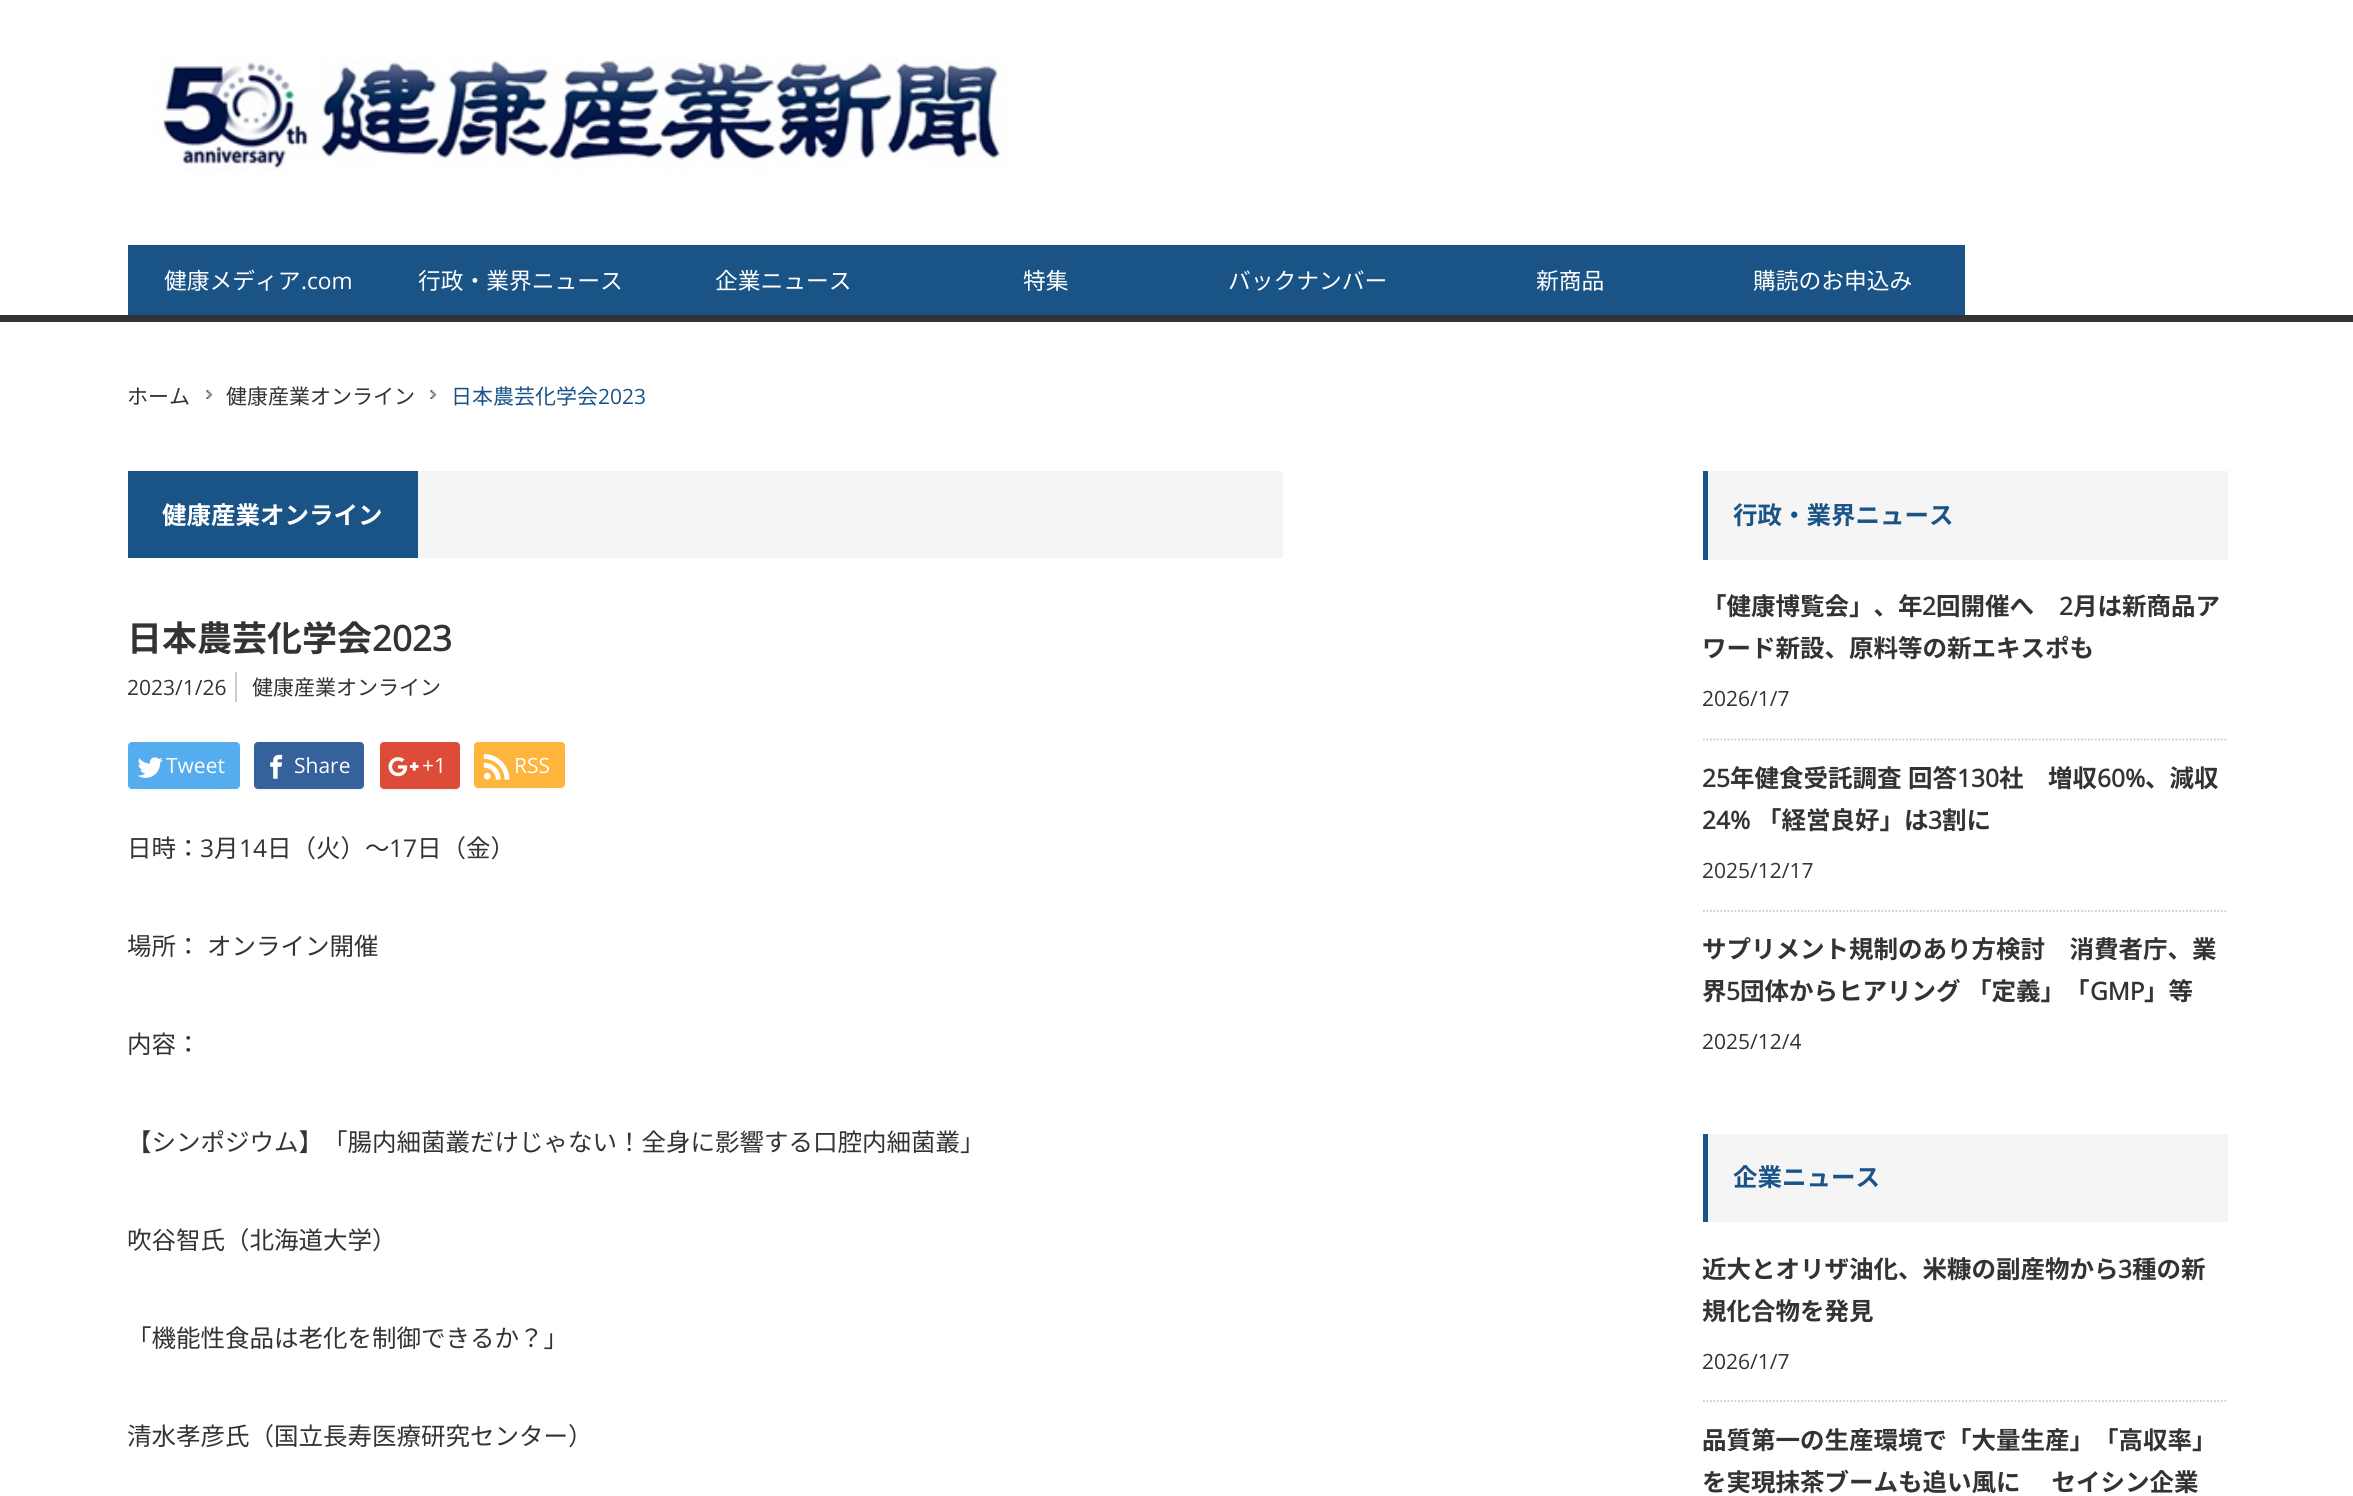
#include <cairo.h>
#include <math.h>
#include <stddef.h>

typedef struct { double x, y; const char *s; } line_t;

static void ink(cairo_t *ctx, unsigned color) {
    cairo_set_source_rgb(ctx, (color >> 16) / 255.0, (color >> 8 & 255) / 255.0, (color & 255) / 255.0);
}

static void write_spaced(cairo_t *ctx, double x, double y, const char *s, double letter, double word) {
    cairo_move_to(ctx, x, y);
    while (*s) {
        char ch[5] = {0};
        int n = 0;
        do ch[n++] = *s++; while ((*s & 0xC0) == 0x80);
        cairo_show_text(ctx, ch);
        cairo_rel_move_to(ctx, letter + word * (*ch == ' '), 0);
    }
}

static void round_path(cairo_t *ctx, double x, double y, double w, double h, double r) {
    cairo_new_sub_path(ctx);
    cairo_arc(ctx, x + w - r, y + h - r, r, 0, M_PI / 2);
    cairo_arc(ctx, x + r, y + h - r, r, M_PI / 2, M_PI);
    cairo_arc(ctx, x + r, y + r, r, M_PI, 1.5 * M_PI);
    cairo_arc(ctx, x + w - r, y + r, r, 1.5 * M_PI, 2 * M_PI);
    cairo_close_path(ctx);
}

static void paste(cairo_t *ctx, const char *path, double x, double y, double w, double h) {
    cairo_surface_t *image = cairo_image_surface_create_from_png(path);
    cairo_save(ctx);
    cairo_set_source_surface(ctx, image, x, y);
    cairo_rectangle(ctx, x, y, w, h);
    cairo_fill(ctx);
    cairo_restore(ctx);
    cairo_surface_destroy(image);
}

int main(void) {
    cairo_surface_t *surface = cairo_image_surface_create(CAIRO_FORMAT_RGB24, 2353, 1496);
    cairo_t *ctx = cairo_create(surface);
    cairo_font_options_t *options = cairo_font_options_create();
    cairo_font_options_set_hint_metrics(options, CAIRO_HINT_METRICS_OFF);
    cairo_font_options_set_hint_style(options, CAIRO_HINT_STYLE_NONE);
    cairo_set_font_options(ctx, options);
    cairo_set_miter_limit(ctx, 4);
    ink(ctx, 0xFFFFFF);
    cairo_paint(ctx);
    ink(ctx, 0x333333);
    cairo_rectangle(ctx, 0, 315, 2353, 7);
    cairo_fill(ctx);
    paste(ctx, "media/1.png", 149, 59, 864, 113);
    ink(ctx, 0x1A5487);
    cairo_rectangle(ctx, 128, 245, 1837, 70);
    cairo_fill(ctx);
    cairo_select_font_face(ctx, "Noto Sans JP", CAIRO_FONT_SLANT_NORMAL, CAIRO_FONT_WEIGHT_NORMAL);
    cairo_set_font_size(ctx, 22.75);
    ink(ctx, 0xFFFFFF);
    cairo_move_to(ctx, 164, 289);
    cairo_show_text(ctx, "健康メディア");
    cairo_select_font_face(ctx, "Open Sans", CAIRO_FONT_SLANT_NORMAL, CAIRO_FONT_WEIGHT_NORMAL);
    cairo_move_to(ctx, 301, 289);
    cairo_show_text(ctx, ".com");
    cairo_select_font_face(ctx, "Noto Sans JP", CAIRO_FONT_SLANT_NORMAL, CAIRO_FONT_WEIGHT_NORMAL);
    {
        static const line_t items[] = {
            {418, 289, "行政・業界ニュース"},
            {715, 289, "企業ニュース"},
            {1023, 289, "特集"},
            {1228, 289, "バックナンバー"},
            {1536, 289, "新商品"},
            {1753, 289, "購読のお申込み"},
        };
        for (size_t i = 0; i < sizeof items / sizeof *items; i++) {
            cairo_move_to(ctx, items[i].x, items[i].y);
            cairo_show_text(ctx, items[i].s);
        }
    }
    cairo_set_font_size(ctx, 21);
    ink(ctx, 0x333333);
    cairo_move_to(ctx, 127, 404);
    cairo_show_text(ctx, "ホーム");
    paste(ctx, "media/2.png", 206, 390, 6, 9);
    cairo_move_to(ctx, 226, 404);
    cairo_show_text(ctx, "健康産業オンライン");
    paste(ctx, "media/2.png", 430, 390, 6, 9);
    ink(ctx, 0x1A5487);
    cairo_move_to(ctx, 451, 404);
    cairo_show_text(ctx, "日本農芸化学会");
    cairo_select_font_face(ctx, "Open Sans", CAIRO_FONT_SLANT_NORMAL, CAIRO_FONT_WEIGHT_NORMAL);
    cairo_move_to(ctx, 598, 404);
    cairo_show_text(ctx, "2023");
    ink(ctx, 0xF5F5F5);
    cairo_rectangle(ctx, 418, 471, 865, 87);
    cairo_fill(ctx);
    ink(ctx, 0x1A5487);
    cairo_rectangle(ctx, 128, 471, 290, 87);
    cairo_fill(ctx);
    cairo_select_font_face(ctx, "Noto Sans JP", CAIRO_FONT_SLANT_NORMAL, CAIRO_FONT_WEIGHT_BOLD);
    cairo_set_font_size(ctx, 24.5);
    ink(ctx, 0xFFFFFF);
    cairo_move_to(ctx, 162, 524);
    cairo_show_text(ctx, "健康産業オンライン");
    cairo_set_font_size(ctx, 35);
    ink(ctx, 0x333333);
    cairo_move_to(ctx, 127, 651);
    cairo_show_text(ctx, "日本農芸化学会");
    cairo_select_font_face(ctx, "Open Sans", CAIRO_FONT_SLANT_NORMAL, CAIRO_FONT_WEIGHT_BOLD);
    cairo_move_to(ctx, 372, 651);
    cairo_show_text(ctx, "2023");
    cairo_select_font_face(ctx, "Open Sans", CAIRO_FONT_SLANT_NORMAL, CAIRO_FONT_WEIGHT_NORMAL);
    cairo_set_font_size(ctx, 21);
    cairo_move_to(ctx, 127, 695);
    cairo_show_text(ctx, "2023/1/26");
    ink(ctx, 0xCCCCCC);
    cairo_rectangle(ctx, 235, 672, 2, 30);
    cairo_fill(ctx);
    cairo_select_font_face(ctx, "Noto Sans JP", CAIRO_FONT_SLANT_NORMAL, CAIRO_FONT_WEIGHT_NORMAL);
    ink(ctx, 0x333333);
    cairo_move_to(ctx, 252, 695);
    cairo_show_text(ctx, "健康産業オンライン");
    ink(ctx, 0xF7F7F7);
    cairo_new_path(ctx);
    cairo_move_to(ctx, 128, 787);
    cairo_curve_to(ctx, 128, 794, 141, 791, 149, 791);
    cairo_line_to(ctx, 219, 791);
    cairo_curve_to(ctx, 242, 791, 240, 795, 240, 774);
    cairo_line_to(ctx, 240, 747);
    cairo_line_to(ctx, 240, 786);
    cairo_curve_to(ctx, 240, 788, 238, 789, 236, 789);
    cairo_line_to(ctx, 131, 789);
    cairo_curve_to(ctx, 130, 789, 129, 788, 128, 787);
    cairo_close_path(ctx);
    cairo_fill(ctx);
    ink(ctx, 0x55ACEE);
    round_path(ctx, 128, 742, 112, 47, 4);
    cairo_fill(ctx);
    paste(ctx, "media/3.png", 137, 757, 26, 21);
    cairo_select_font_face(ctx, "Open Sans", CAIRO_FONT_SLANT_NORMAL, CAIRO_FONT_WEIGHT_NORMAL);
    ink(ctx, 0xFFFFFF);
    cairo_move_to(ctx, 166, 773);
    cairo_show_text(ctx, "Tweet");
    ink(ctx, 0xF7F7F7);
    cairo_new_path(ctx);
    cairo_move_to(ctx, 254, 787);
    cairo_curve_to(ctx, 254, 789, 256, 791, 258, 791);
    cairo_line_to(ctx, 360, 791);
    cairo_curve_to(ctx, 362, 791, 364, 789, 364, 787);
    cairo_line_to(ctx, 364, 786);
    cairo_curve_to(ctx, 364, 788, 362, 789, 360, 789);
    cairo_line_to(ctx, 257, 789);
    cairo_curve_to(ctx, 256, 789, 255, 788, 254, 787);
    cairo_close_path(ctx);
    cairo_fill(ctx);
    ink(ctx, 0x35629A);
    round_path(ctx, 254, 742, 110, 47, 4);
    cairo_fill(ctx);
    paste(ctx, "media/4.png", 270, 754, 13, 25);
    ink(ctx, 0xFFFFFF);
    cairo_move_to(ctx, 294, 773);
    cairo_show_text(ctx, "Share");
    ink(ctx, 0xF7F7F7);
    cairo_new_path(ctx);
    cairo_move_to(ctx, 380, 787);
    cairo_curve_to(ctx, 380, 789, 382, 791, 384, 791);
    cairo_line_to(ctx, 456, 791);
    cairo_curve_to(ctx, 458, 791, 460, 789, 460, 787);
    cairo_curve_to(ctx, 459, 788, 458, 789, 457, 789);
    cairo_line_to(ctx, 382, 789);
    cairo_close_path(ctx);
    cairo_fill(ctx);
    ink(ctx, 0xDD4B39);
    round_path(ctx, 380, 742, 80, 47, 4);
    cairo_fill(ctx);
    paste(ctx, "media/5.png", 388, 757, 31, 20);
    ink(ctx, 0xFFFFFF);
    cairo_move_to(ctx, 422, 773);
    cairo_show_text(ctx, "+1");
    ink(ctx, 0xF7F7F7);
    cairo_new_path(ctx);
    cairo_move_to(ctx, 474, 747);
    cairo_line_to(ctx, 474, 773);
    cairo_curve_to(ctx, 474, 792, 472, 789, 492, 789);
    cairo_line_to(ctx, 547, 789);
    cairo_curve_to(ctx, 548, 789, 564, 792, 565, 785);
    cairo_curve_to(ctx, 564, 787, 563, 788, 562, 788);
    cairo_line_to(ctx, 478, 788);
    cairo_curve_to(ctx, 476, 788, 474, 786, 474, 784);
    cairo_close_path(ctx);
    cairo_fill(ctx);
    ink(ctx, 0xFFB53C);
    round_path(ctx, 474, 742, 91, 46, 4);
    cairo_fill(ctx);
    paste(ctx, "media/6.png", 483, 754, 27, 26);
    ink(ctx, 0xFFFFFF);
    cairo_move_to(ctx, 514, 773);
    cairo_show_text(ctx, "RSS");
    cairo_select_font_face(ctx, "Noto Sans JP", CAIRO_FONT_SLANT_NORMAL, CAIRO_FONT_WEIGHT_NORMAL);
    cairo_set_font_size(ctx, 24.5);
    ink(ctx, 0x333333);
    cairo_move_to(ctx, 127, 857);
    cairo_show_text(ctx, "日時：");
    cairo_select_font_face(ctx, "Open Sans", CAIRO_FONT_SLANT_NORMAL, CAIRO_FONT_WEIGHT_NORMAL);
    cairo_move_to(ctx, 200, 857);
    cairo_show_text(ctx, "3");
    cairo_select_font_face(ctx, "Noto Sans JP", CAIRO_FONT_SLANT_NORMAL, CAIRO_FONT_WEIGHT_NORMAL);
    cairo_move_to(ctx, 214, 857);
    cairo_show_text(ctx, "月");
    cairo_select_font_face(ctx, "Open Sans", CAIRO_FONT_SLANT_NORMAL, CAIRO_FONT_WEIGHT_NORMAL);
    cairo_move_to(ctx, 239, 857);
    cairo_show_text(ctx, "14");
    cairo_select_font_face(ctx, "Noto Sans JP", CAIRO_FONT_SLANT_NORMAL, CAIRO_FONT_WEIGHT_NORMAL);
    cairo_move_to(ctx, 267, 857);
    cairo_show_text(ctx, "日（火）～");
    cairo_select_font_face(ctx, "Open Sans", CAIRO_FONT_SLANT_NORMAL, CAIRO_FONT_WEIGHT_NORMAL);
    cairo_move_to(ctx, 389, 857);
    cairo_show_text(ctx, "17");
    cairo_select_font_face(ctx, "Noto Sans JP", CAIRO_FONT_SLANT_NORMAL, CAIRO_FONT_WEIGHT_NORMAL);
    cairo_move_to(ctx, 417, 857);
    cairo_show_text(ctx, "日（金）");
    write_spaced(ctx, 127, 955, "場所： オンライン開催", 0, 1);
    {
        static const line_t items[] = {
            {127, 1053, "内容："},
            {127, 1151, "【シンポジウム】「腸内細菌叢だけじゃない！全身に影響する口腔内細菌叢」"},
            {127, 1249, "吹谷智氏（北海道大学）"},
            {127, 1347, "「機能性食品は老化を制御できるか？」"},
            {127, 1445, "清水孝彦氏（国立長寿医療研究センター）"},
        };
        for (size_t i = 0; i < sizeof items / sizeof *items; i++) {
            cairo_move_to(ctx, items[i].x, items[i].y);
            cairo_show_text(ctx, items[i].s);
        }
    }
    ink(ctx, 0xF5F5F5);
    cairo_rectangle(ctx, 1708, 471, 520, 89);
    cairo_fill(ctx);
    ink(ctx, 0x1A5487);
    cairo_rectangle(ctx, 1703, 471, 5, 89);
    cairo_fill(ctx);
    cairo_select_font_face(ctx, "Noto Sans JP", CAIRO_FONT_SLANT_NORMAL, CAIRO_FONT_WEIGHT_BOLD);
    cairo_move_to(ctx, 1733, 524);
    cairo_show_text(ctx, "行政・業界ニュース");
    cairo_new_path(ctx);
    cairo_move_to(ctx, 1703, 739.5);
    cairo_line_to(ctx, 2228, 739.5);
    ink(ctx, 0xCCCCCC);
    cairo_set_line_width(ctx, 1.8);
    cairo_set_dash(ctx, (double[]){1.75, 1.75}, 2, 0);
    cairo_stroke(ctx);
    ink(ctx, 0x333333);
    cairo_move_to(ctx, 1702, 615);
    cairo_show_text(ctx, "「健康博覧会」、年");
    cairo_select_font_face(ctx, "Open Sans", CAIRO_FONT_SLANT_NORMAL, CAIRO_FONT_WEIGHT_BOLD);
    cairo_move_to(ctx, 1922, 615);
    cairo_show_text(ctx, "2");
    cairo_select_font_face(ctx, "Noto Sans JP", CAIRO_FONT_SLANT_NORMAL, CAIRO_FONT_WEIGHT_BOLD);
    cairo_move_to(ctx, 1936, 615);
    cairo_show_text(ctx, "回開催へ");
    cairo_select_font_face(ctx, "Open Sans", CAIRO_FONT_SLANT_NORMAL, CAIRO_FONT_WEIGHT_BOLD);
    cairo_move_to(ctx, 2059, 615);
    cairo_show_text(ctx, "2");
    cairo_select_font_face(ctx, "Noto Sans JP", CAIRO_FONT_SLANT_NORMAL, CAIRO_FONT_WEIGHT_BOLD);
    cairo_move_to(ctx, 2073, 615);
    cairo_show_text(ctx, "月は新商品ア");
    cairo_move_to(ctx, 1702, 657);
    cairo_show_text(ctx, "ワード新設、原料等の新エキスポも");
    cairo_select_font_face(ctx, "Open Sans", CAIRO_FONT_SLANT_NORMAL, CAIRO_FONT_WEIGHT_NORMAL);
    cairo_set_font_size(ctx, 21);
    cairo_move_to(ctx, 1702, 706);
    cairo_show_text(ctx, "2026/1/7");
    cairo_new_path(ctx);
    cairo_move_to(ctx, 1703, 911);
    cairo_line_to(ctx, 2228, 911);
    ink(ctx, 0xCCCCCC);
    cairo_stroke(ctx);
    cairo_select_font_face(ctx, "Open Sans", CAIRO_FONT_SLANT_NORMAL, CAIRO_FONT_WEIGHT_BOLD);
    cairo_set_font_size(ctx, 24.5);
    ink(ctx, 0x333333);
    cairo_move_to(ctx, 1702, 787);
    cairo_show_text(ctx, "25");
    cairo_select_font_face(ctx, "Noto Sans JP", CAIRO_FONT_SLANT_NORMAL, CAIRO_FONT_WEIGHT_BOLD);
    write_spaced(ctx, 1730, 787, "年健食受託調査 回答", 0, 1);
    cairo_select_font_face(ctx, "Open Sans", CAIRO_FONT_SLANT_NORMAL, CAIRO_FONT_WEIGHT_BOLD);
    cairo_move_to(ctx, 1957, 787);
    cairo_show_text(ctx, "130");
    cairo_select_font_face(ctx, "Noto Sans JP", CAIRO_FONT_SLANT_NORMAL, CAIRO_FONT_WEIGHT_BOLD);
    cairo_move_to(ctx, 1999, 787);
    cairo_show_text(ctx, "社　増収");
    cairo_select_font_face(ctx, "Open Sans", CAIRO_FONT_SLANT_NORMAL, CAIRO_FONT_WEIGHT_BOLD);
    cairo_move_to(ctx, 2097, 787);
    cairo_show_text(ctx, "60%");
    cairo_select_font_face(ctx, "Noto Sans JP", CAIRO_FONT_SLANT_NORMAL, CAIRO_FONT_WEIGHT_BOLD);
    cairo_move_to(ctx, 2145, 787);
    cairo_show_text(ctx, "、減収");
    cairo_select_font_face(ctx, "Open Sans", CAIRO_FONT_SLANT_NORMAL, CAIRO_FONT_WEIGHT_BOLD);
    cairo_move_to(ctx, 1702, 829);
    cairo_show_text(ctx, "24%");
    cairo_select_font_face(ctx, "Noto Sans JP", CAIRO_FONT_SLANT_NORMAL, CAIRO_FONT_WEIGHT_BOLD);
    cairo_move_to(ctx, 1757, 829);
    cairo_show_text(ctx, "「経営良好」は");
    cairo_select_font_face(ctx, "Open Sans", CAIRO_FONT_SLANT_NORMAL, CAIRO_FONT_WEIGHT_BOLD);
    cairo_move_to(ctx, 1928, 829);
    cairo_show_text(ctx, "3");
    cairo_select_font_face(ctx, "Noto Sans JP", CAIRO_FONT_SLANT_NORMAL, CAIRO_FONT_WEIGHT_BOLD);
    cairo_move_to(ctx, 1942, 829);
    cairo_show_text(ctx, "割に");
    cairo_select_font_face(ctx, "Open Sans", CAIRO_FONT_SLANT_NORMAL, CAIRO_FONT_WEIGHT_NORMAL);
    cairo_set_font_size(ctx, 21);
    cairo_move_to(ctx, 1702, 878);
    cairo_show_text(ctx, "2025/12/17");
    cairo_select_font_face(ctx, "Noto Sans JP", CAIRO_FONT_SLANT_NORMAL, CAIRO_FONT_WEIGHT_BOLD);
    cairo_set_font_size(ctx, 24.5);
    cairo_move_to(ctx, 1702, 958);
    cairo_show_text(ctx, "サプリメント規制のあり方検討　消費者庁、業");
    cairo_move_to(ctx, 1702, 1000);
    cairo_show_text(ctx, "界");
    cairo_select_font_face(ctx, "Open Sans", CAIRO_FONT_SLANT_NORMAL, CAIRO_FONT_WEIGHT_BOLD);
    cairo_move_to(ctx, 1726, 1000);
    cairo_show_text(ctx, "5");
    cairo_select_font_face(ctx, "Noto Sans JP", CAIRO_FONT_SLANT_NORMAL, CAIRO_FONT_WEIGHT_BOLD);
    write_spaced(ctx, 1740, 1000, "団体からヒアリング 「定義」「", 0, 1);
    cairo_select_font_face(ctx, "Open Sans", CAIRO_FONT_SLANT_NORMAL, CAIRO_FONT_WEIGHT_BOLD);
    cairo_move_to(ctx, 2090, 1000);
    cairo_show_text(ctx, "GMP");
    cairo_select_font_face(ctx, "Noto Sans JP", CAIRO_FONT_SLANT_NORMAL, CAIRO_FONT_WEIGHT_BOLD);
    cairo_move_to(ctx, 2144, 1000);
    cairo_show_text(ctx, "」等");
    cairo_select_font_face(ctx, "Open Sans", CAIRO_FONT_SLANT_NORMAL, CAIRO_FONT_WEIGHT_NORMAL);
    cairo_set_font_size(ctx, 21);
    cairo_move_to(ctx, 1702, 1049);
    cairo_show_text(ctx, "2025/12/4");
    ink(ctx, 0xF5F5F5);
    cairo_rectangle(ctx, 1708, 1134, 520, 88);
    cairo_fill(ctx);
    ink(ctx, 0x1A5487);
    cairo_rectangle(ctx, 1703, 1134, 5, 88);
    cairo_fill(ctx);
    cairo_select_font_face(ctx, "Noto Sans JP", CAIRO_FONT_SLANT_NORMAL, CAIRO_FONT_WEIGHT_BOLD);
    cairo_set_font_size(ctx, 24.5);
    cairo_move_to(ctx, 1733, 1186);
    cairo_show_text(ctx, "企業ニュース");
    cairo_new_path(ctx);
    cairo_move_to(ctx, 1703, 1401);
    cairo_line_to(ctx, 2228, 1401);
    ink(ctx, 0xCCCCCC);
    cairo_stroke(ctx);
    ink(ctx, 0x333333);
    cairo_move_to(ctx, 1702, 1278);
    cairo_show_text(ctx, "近大とオリザ油化、米糠の副産物から");
    cairo_select_font_face(ctx, "Open Sans", CAIRO_FONT_SLANT_NORMAL, CAIRO_FONT_WEIGHT_BOLD);
    cairo_move_to(ctx, 2118, 1278);
    cairo_show_text(ctx, "3");
    cairo_select_font_face(ctx, "Noto Sans JP", CAIRO_FONT_SLANT_NORMAL, CAIRO_FONT_WEIGHT_BOLD);
    cairo_move_to(ctx, 2132, 1278);
    cairo_show_text(ctx, "種の新");
    cairo_move_to(ctx, 1702, 1320);
    cairo_show_text(ctx, "規化合物を発見");
    cairo_select_font_face(ctx, "Open Sans", CAIRO_FONT_SLANT_NORMAL, CAIRO_FONT_WEIGHT_NORMAL);
    cairo_set_font_size(ctx, 21);
    cairo_move_to(ctx, 1702, 1369);
    cairo_show_text(ctx, "2026/1/7");
    cairo_select_font_face(ctx, "Noto Sans JP", CAIRO_FONT_SLANT_NORMAL, CAIRO_FONT_WEIGHT_BOLD);
    cairo_set_font_size(ctx, 24.5);
    cairo_move_to(ctx, 1702, 1449);
    cairo_show_text(ctx, "品質第一の生産環境で「大量生産」「高収率」");
    write_spaced(ctx, 1702, 1491, "を実現抹茶ブームも追い風に 　セイシン企業", 0, 1);
    cairo_surface_write_to_png(surface, "image.png");
    cairo_font_options_destroy(options);
    cairo_destroy(ctx);
    cairo_surface_destroy(surface);
    return 0;
}
